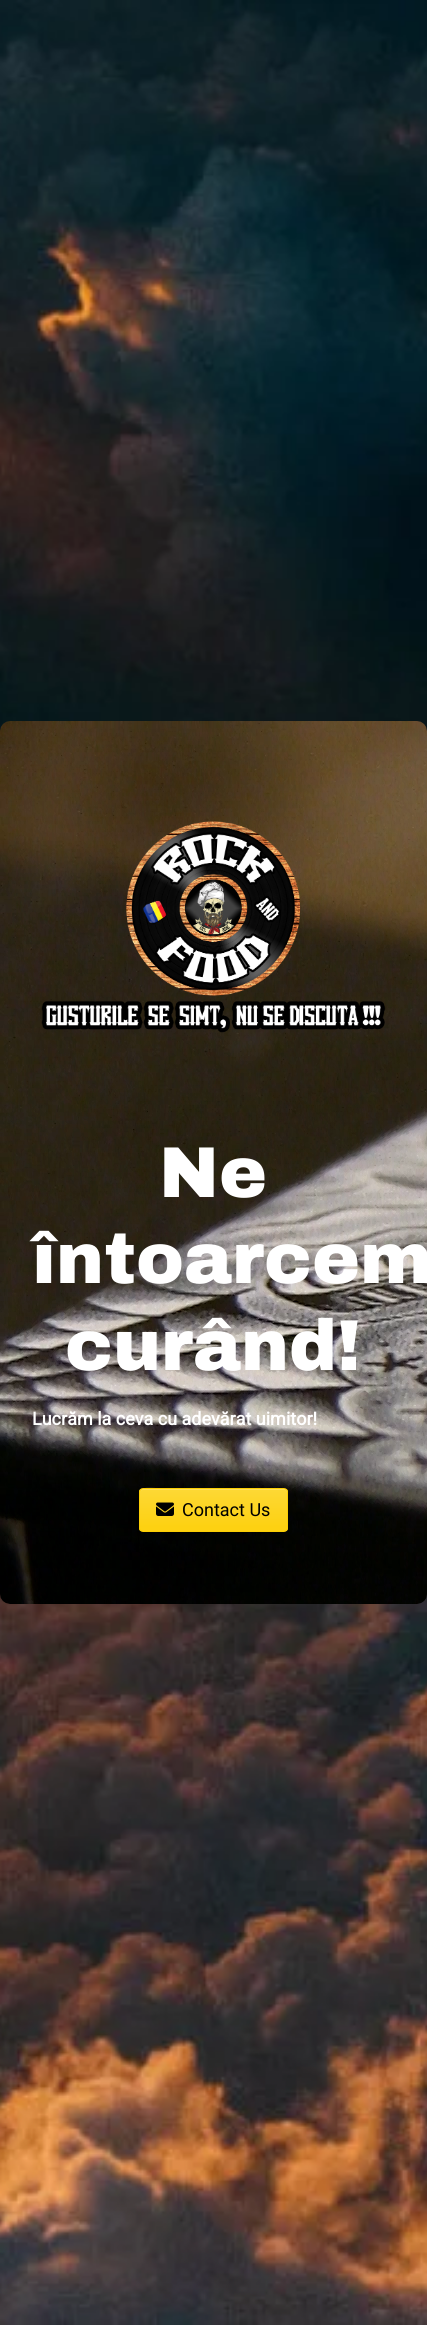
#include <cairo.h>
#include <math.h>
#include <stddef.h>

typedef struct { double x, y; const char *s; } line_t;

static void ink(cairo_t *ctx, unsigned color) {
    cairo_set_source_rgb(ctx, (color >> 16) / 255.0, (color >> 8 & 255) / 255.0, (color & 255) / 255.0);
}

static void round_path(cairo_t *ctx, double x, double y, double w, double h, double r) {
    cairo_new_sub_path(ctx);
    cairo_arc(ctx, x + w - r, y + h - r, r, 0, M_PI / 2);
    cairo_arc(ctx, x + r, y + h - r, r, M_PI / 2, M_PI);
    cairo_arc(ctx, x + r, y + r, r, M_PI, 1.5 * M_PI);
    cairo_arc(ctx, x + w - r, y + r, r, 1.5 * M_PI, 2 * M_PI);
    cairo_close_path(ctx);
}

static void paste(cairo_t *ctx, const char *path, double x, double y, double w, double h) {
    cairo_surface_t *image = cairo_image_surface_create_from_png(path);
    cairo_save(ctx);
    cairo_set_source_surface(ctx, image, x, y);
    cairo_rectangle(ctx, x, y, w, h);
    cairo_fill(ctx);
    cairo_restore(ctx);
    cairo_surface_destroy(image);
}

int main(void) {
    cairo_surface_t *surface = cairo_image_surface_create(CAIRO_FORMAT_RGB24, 427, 2325);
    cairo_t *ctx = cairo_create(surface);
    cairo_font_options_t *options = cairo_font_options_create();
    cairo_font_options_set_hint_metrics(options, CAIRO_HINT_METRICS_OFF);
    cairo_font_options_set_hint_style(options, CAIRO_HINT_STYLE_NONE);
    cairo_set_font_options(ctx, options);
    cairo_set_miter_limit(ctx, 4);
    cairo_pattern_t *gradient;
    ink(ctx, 0xFFFFFF);
    cairo_paint(ctx);
    paste(ctx, "media/1.png", 0, 0, 427, 2325);
    paste(ctx, "media/2.png", 0, 721, 427, 883);
    paste(ctx, "media/3.png", 41, 821, 345, 212);
    cairo_select_font_face(ctx, "Archivo Black Black", CAIRO_FONT_SLANT_NORMAL, CAIRO_FONT_WEIGHT_NORMAL);
    cairo_set_font_size(ctx, 72);
    ink(ctx, 0xFFFFFF);
    {
        static const line_t items[] = {
            {159, 1197, "Ne"},
            {32, 1283, "întoarcem"},
            {65, 1370, "curând!"},
        };
        for (size_t i = 0; i < sizeof items / sizeof *items; i++) {
            cairo_move_to(ctx, items[i].x, items[i].y);
            cairo_show_text(ctx, items[i].s);
        }
    }
    cairo_select_font_face(ctx, "Roboto", CAIRO_FONT_SLANT_NORMAL, CAIRO_FONT_WEIGHT_BOLD);
    cairo_set_font_size(ctx, 18);
    cairo_move_to(ctx, 32, 1425);
    cairo_show_text(ctx, "Lucrăm la ceva cu adevărat uimitor!");
    cairo_save(ctx);
    round_path(ctx, 139, 1488, 149, 44, 4);
    cairo_clip(ctx);
    gradient = cairo_pattern_create_linear(214, 1489, 214, 1531);
    cairo_pattern_add_color_stop_rgba(gradient, 0, 0.992, 0.847, 0.208, 1);
    cairo_pattern_add_color_stop_rgba(gradient, 0.9, 0.992, 0.82, 0.071, 1);
    cairo_set_source(ctx, gradient);
    cairo_pattern_destroy(gradient);
    cairo_rectangle(ctx, 139, 1489, 149, 42);
    cairo_fill(ctx);
    cairo_restore(ctx);
    cairo_set_source_rgba(ctx, 1, 1, 1, 0.2);
    cairo_new_path(ctx);
    cairo_move_to(ctx, 143, 1490);
    cairo_line_to(ctx, 284, 1490);
    cairo_curve_to(ctx, 286, 1490, 287, 1491, 287, 1493);
    cairo_curve_to(ctx, 287, 1491, 287, 1490, 285, 1489);
    cairo_line_to(ctx, 166, 1489);
    cairo_curve_to(ctx, 159, 1489, 140, 1484, 140, 1493);
    cairo_curve_to(ctx, 140, 1491, 141, 1490, 143, 1490);
    cairo_close_path(ctx);
    cairo_fill(ctx);
    round_path(ctx, 139.5, 1488.5, 148, 43, 3.5);
    ink(ctx, 0xFCCE03);
    cairo_set_line_width(ctx, 1);
    cairo_stroke(ctx);
    paste(ctx, "media/4.png", 156, 1502, 18, 14);
    cairo_select_font_face(ctx, "Roboto", CAIRO_FONT_SLANT_NORMAL, CAIRO_FONT_WEIGHT_NORMAL);
    ink(ctx, 0x000000);
    cairo_move_to(ctx, 182, 1516);
    cairo_show_text(ctx, "Contact Us");
    cairo_surface_write_to_png(surface, "image.png");
    cairo_font_options_destroy(options);
    cairo_destroy(ctx);
    cairo_surface_destroy(surface);
    return 0;
}
